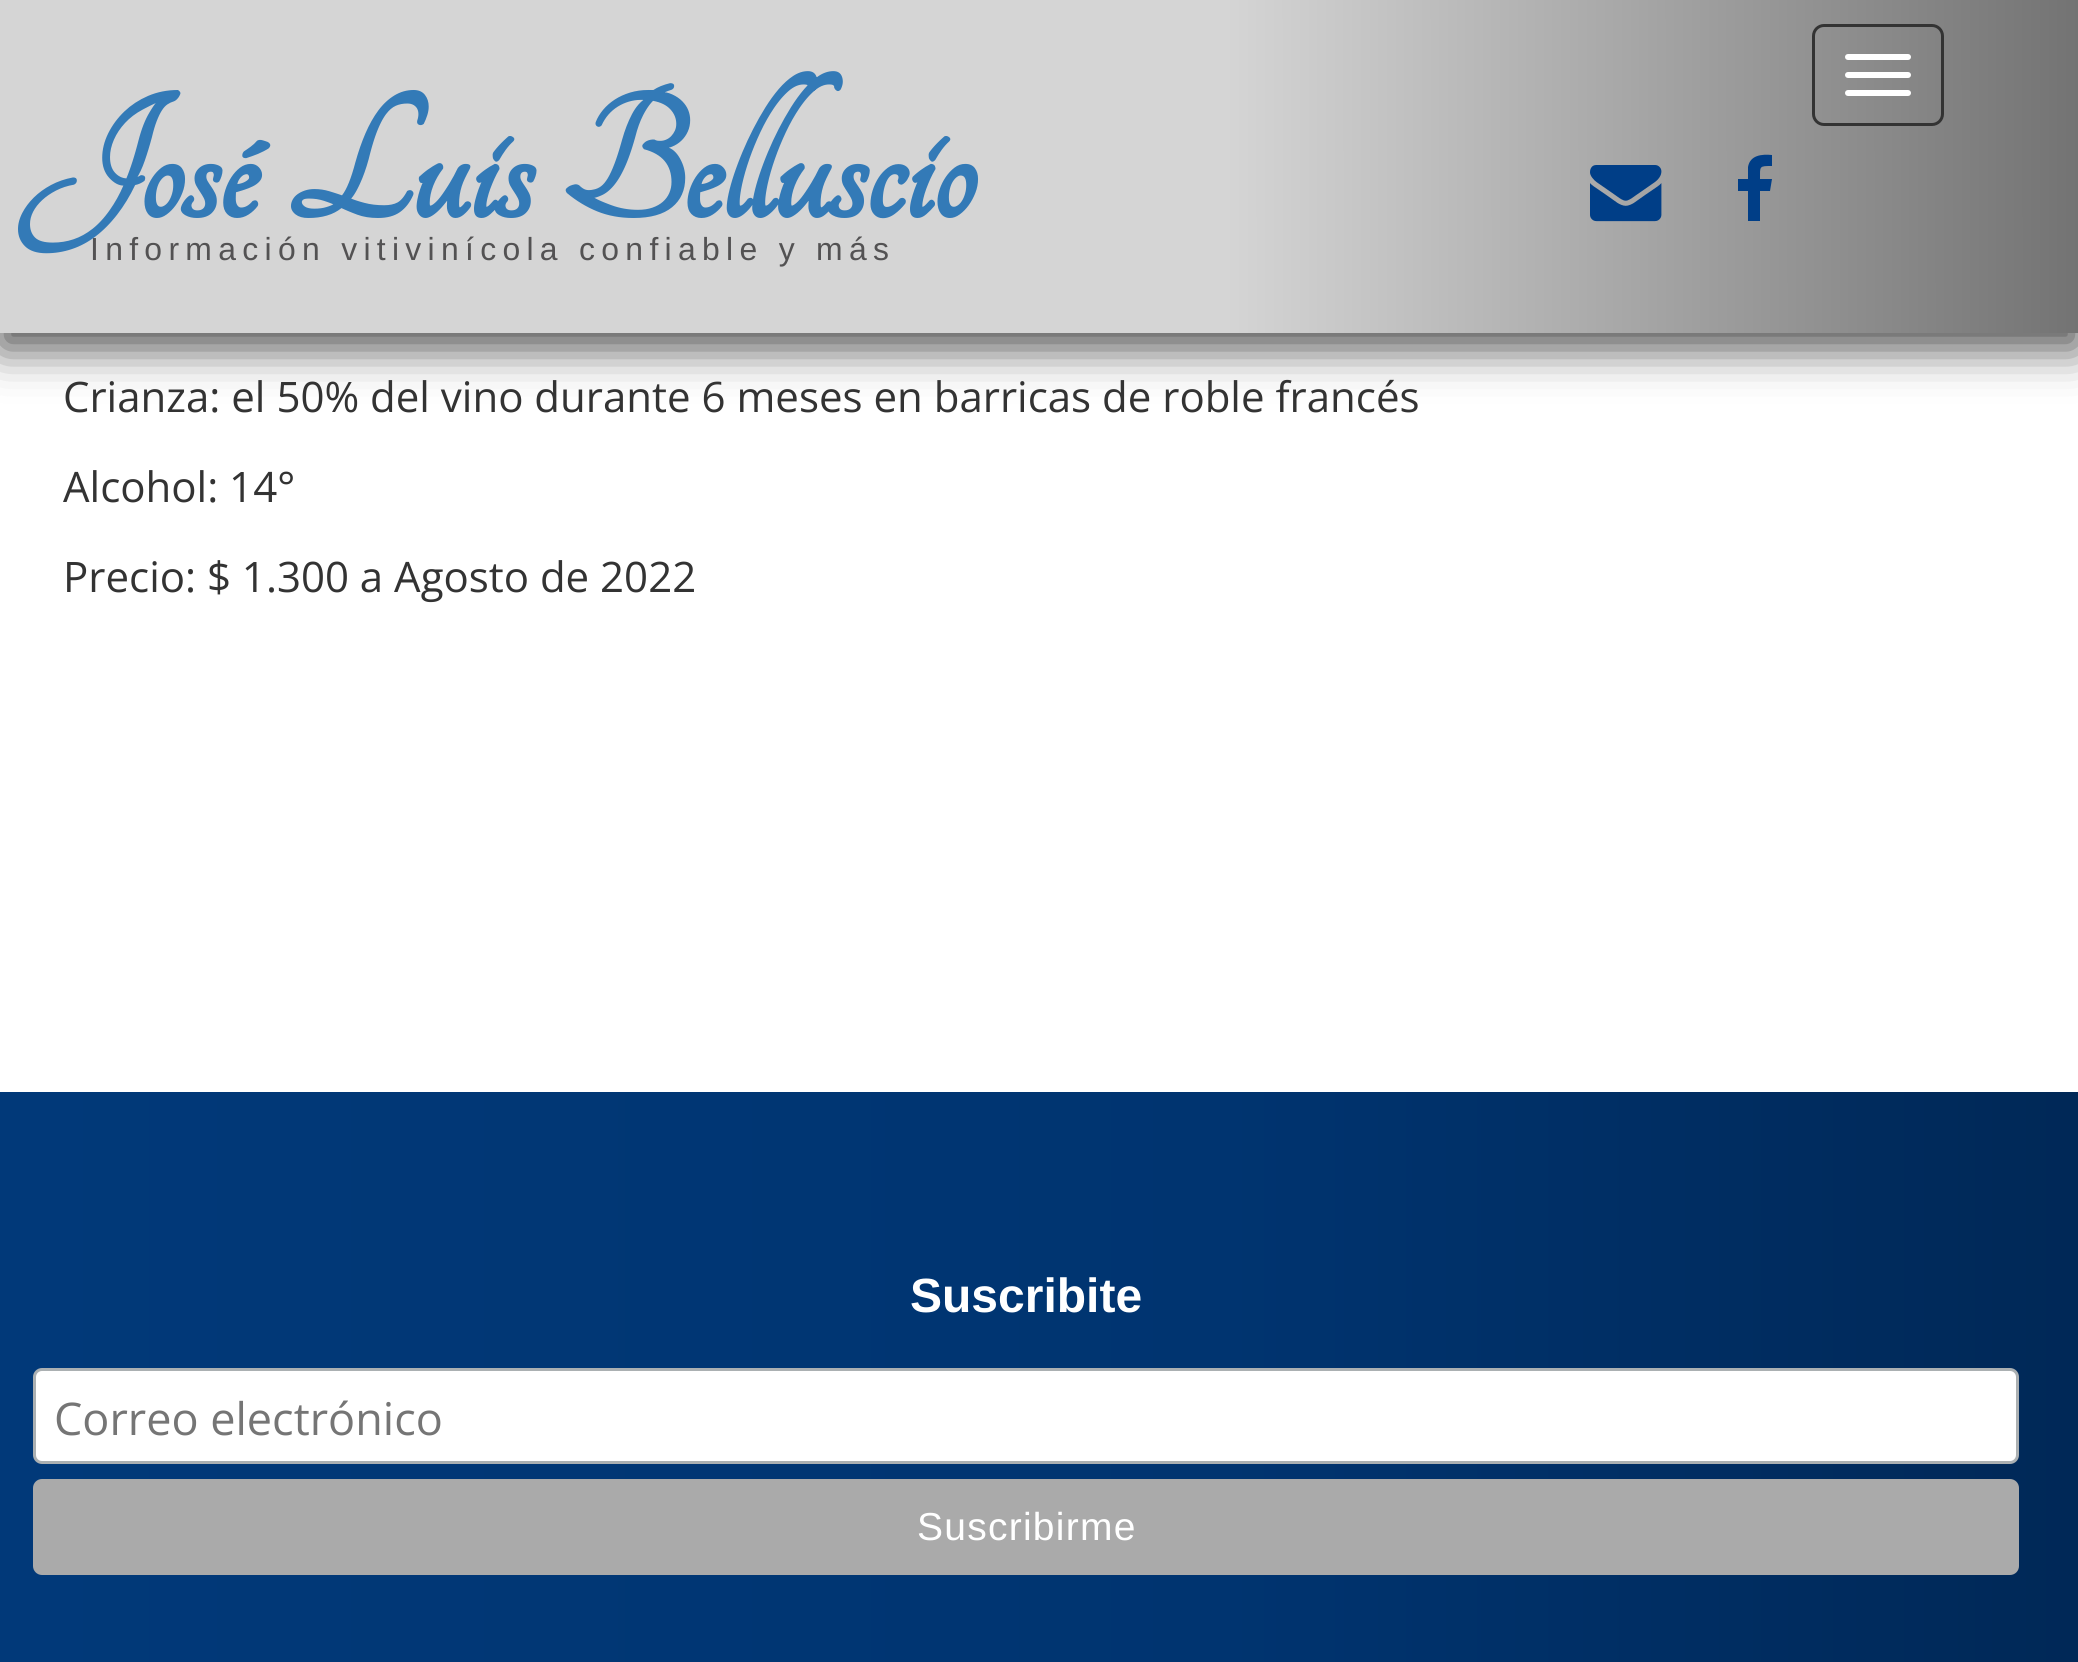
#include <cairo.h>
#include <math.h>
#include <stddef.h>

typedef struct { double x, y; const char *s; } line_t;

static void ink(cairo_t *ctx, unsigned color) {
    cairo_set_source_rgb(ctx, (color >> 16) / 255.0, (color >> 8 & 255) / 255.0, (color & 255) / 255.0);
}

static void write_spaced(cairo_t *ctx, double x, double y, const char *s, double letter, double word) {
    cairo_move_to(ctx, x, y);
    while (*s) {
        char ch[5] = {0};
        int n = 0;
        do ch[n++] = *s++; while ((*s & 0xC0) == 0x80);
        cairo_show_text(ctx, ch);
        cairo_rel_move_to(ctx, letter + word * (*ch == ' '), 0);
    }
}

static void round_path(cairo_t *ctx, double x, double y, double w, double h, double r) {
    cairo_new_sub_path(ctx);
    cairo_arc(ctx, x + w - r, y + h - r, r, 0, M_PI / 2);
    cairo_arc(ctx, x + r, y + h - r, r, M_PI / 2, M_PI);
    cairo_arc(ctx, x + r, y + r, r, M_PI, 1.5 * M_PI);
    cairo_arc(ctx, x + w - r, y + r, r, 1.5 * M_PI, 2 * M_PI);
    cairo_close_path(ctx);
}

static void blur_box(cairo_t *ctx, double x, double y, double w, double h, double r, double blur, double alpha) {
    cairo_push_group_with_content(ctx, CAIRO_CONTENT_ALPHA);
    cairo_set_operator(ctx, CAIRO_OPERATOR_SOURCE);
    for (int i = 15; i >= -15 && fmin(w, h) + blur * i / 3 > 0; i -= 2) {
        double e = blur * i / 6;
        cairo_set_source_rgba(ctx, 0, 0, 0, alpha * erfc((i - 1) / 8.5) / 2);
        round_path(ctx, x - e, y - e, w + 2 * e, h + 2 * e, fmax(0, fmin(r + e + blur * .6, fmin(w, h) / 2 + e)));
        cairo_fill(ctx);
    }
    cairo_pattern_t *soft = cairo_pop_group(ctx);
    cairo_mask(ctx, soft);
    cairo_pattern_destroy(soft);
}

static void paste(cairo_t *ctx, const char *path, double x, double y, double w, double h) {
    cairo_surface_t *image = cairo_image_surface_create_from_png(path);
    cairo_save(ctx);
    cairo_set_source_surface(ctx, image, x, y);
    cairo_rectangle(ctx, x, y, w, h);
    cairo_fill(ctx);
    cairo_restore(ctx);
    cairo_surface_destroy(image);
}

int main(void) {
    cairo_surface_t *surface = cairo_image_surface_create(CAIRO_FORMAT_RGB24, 2078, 1662);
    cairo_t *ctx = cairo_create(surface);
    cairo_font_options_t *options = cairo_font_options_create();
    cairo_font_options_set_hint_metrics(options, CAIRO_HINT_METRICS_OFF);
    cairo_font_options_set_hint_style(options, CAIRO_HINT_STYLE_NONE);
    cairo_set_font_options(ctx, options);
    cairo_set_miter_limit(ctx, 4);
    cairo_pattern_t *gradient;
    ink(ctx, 0xFFFFFF);
    cairo_paint(ctx);
    ink(ctx, 0x000000);
    blur_box(ctx, 0, 15, 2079, 333, 0, 22.5, 0.7);
    gradient = cairo_pattern_create_linear(0, 167, 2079, 166);
    cairo_pattern_add_color_stop_rgba(gradient, 0, 0.835, 0.835, 0.835, 1);
    cairo_pattern_add_color_stop_rgba(gradient, 0.59, 0.835, 0.835, 0.835, 1);
    cairo_pattern_add_color_stop_rgba(gradient, 1, 0.451, 0.451, 0.451, 1);
    cairo_set_source(ctx, gradient);
    cairo_pattern_destroy(gradient);
    cairo_rectangle(ctx, 0, 0, 2078, 333);
    cairo_fill(ctx);
    cairo_select_font_face(ctx, "Tangerine", CAIRO_FONT_SLANT_NORMAL, CAIRO_FONT_WEIGHT_BOLD);
    cairo_set_font_size(ctx, 190.5);
    ink(ctx, 0x337AB7);
    cairo_move_to(ctx, 18, 218);
    cairo_show_text(ctx, "José Luis Belluscio");
    cairo_select_font_face(ctx, "Liberation Sans", CAIRO_FONT_SLANT_NORMAL, CAIRO_FONT_WEIGHT_NORMAL);
    cairo_set_font_size(ctx, 31.9);
    ink(ctx, 0x535253);
    write_spaced(ctx, 90, 260, "Información vitivinícola confiable y más", 6.3, 0);
    paste(ctx, "media/1.png", 1590, 165, 72, 57);
    ink(ctx, 0x003E87);
    cairo_new_path(ctx);
    cairo_move_to(ctx, 1772, 155);
    cairo_line_to(ctx, 1772, 166);
    cairo_curve_to(ctx, 1759, 166, 1760, 166, 1760, 179);
    cairo_line_to(ctx, 1772, 179);
    cairo_line_to(ctx, 1770, 191);
    cairo_line_to(ctx, 1760, 191);
    cairo_line_to(ctx, 1760, 221);
    cairo_line_to(ctx, 1748, 221);
    cairo_line_to(ctx, 1748, 191);
    cairo_line_to(ctx, 1738, 191);
    cairo_line_to(ctx, 1738, 179);
    cairo_line_to(ctx, 1748, 179);
    cairo_line_to(ctx, 1748, 167);
    cairo_curve_to(ctx, 1750, 155, 1762, 154, 1772, 155);
    cairo_close_path(ctx);
    cairo_fill(ctx);
    round_path(ctx, 1813.5, 25.5, 129, 99, 10.5);
    ink(ctx, 0x333333);
    cairo_set_line_width(ctx, 3);
    cairo_stroke(ctx);
    ink(ctx, 0xFFFFFF);
    round_path(ctx, 1845, 54, 66, 6, 3);
    cairo_fill(ctx);
    round_path(ctx, 1845, 72, 66, 6, 3);
    cairo_fill(ctx);
    round_path(ctx, 1845, 90, 66, 6, 3);
    cairo_fill(ctx);
    cairo_select_font_face(ctx, "Open Sans", CAIRO_FONT_SLANT_NORMAL, CAIRO_FONT_WEIGHT_NORMAL);
    cairo_set_font_size(ctx, 42);
    ink(ctx, 0x333333);
    {
        static const line_t items[] = {
            {63, 412, "Crianza: el 50% del vino durante 6 meses en barricas de roble francés"},
            {63, 502, "Alcohol: 14°"},
            {63, 592, "Precio: $ 1.300 a Agosto de 2022"},
        };
        for (size_t i = 0; i < sizeof items / sizeof *items; i++) {
            cairo_move_to(ctx, items[i].x, items[i].y);
            cairo_show_text(ctx, items[i].s);
        }
    }
    gradient = cairo_pattern_create_linear(0, 1569, 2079, 1569);
    cairo_pattern_add_color_stop_rgba(gradient, 0, 0.004, 0.224, 0.475, 1);
    cairo_pattern_add_color_stop_rgba(gradient, 0.59, 0, 0.204, 0.439, 1);
    cairo_pattern_add_color_stop_rgba(gradient, 1, 0, 0.157, 0.341, 1);
    cairo_set_source(ctx, gradient);
    cairo_pattern_destroy(gradient);
    cairo_rectangle(ctx, 0, 1092, 2078, 570);
    cairo_fill(ctx);
    cairo_select_font_face(ctx, "Liberation Sans", CAIRO_FONT_SLANT_NORMAL, CAIRO_FONT_WEIGHT_BOLD);
    cairo_set_font_size(ctx, 48);
    ink(ctx, 0xFFFFFF);
    cairo_move_to(ctx, 910, 1312);
    cairo_show_text(ctx, "Suscribite");
    round_path(ctx, 34.5, 1369.5, 1983, 93, 7.5);
    cairo_fill_preserve(ctx);
    ink(ctx, 0xABB0B2);
    cairo_stroke(ctx);
    cairo_select_font_face(ctx, "Open Sans", CAIRO_FONT_SLANT_NORMAL, CAIRO_FONT_WEIGHT_NORMAL);
    cairo_set_font_size(ctx, 45);
    ink(ctx, 0x757575);
    cairo_move_to(ctx, 54, 1435);
    cairo_show_text(ctx, "Correo electrónico");
    ink(ctx, 0xAAAAAA);
    round_path(ctx, 33, 1479, 1986, 96, 9);
    cairo_fill(ctx);
    cairo_select_font_face(ctx, "Liberation Sans", CAIRO_FONT_SLANT_NORMAL, CAIRO_FONT_WEIGHT_NORMAL);
    cairo_set_font_size(ctx, 39);
    ink(ctx, 0xFFFFFF);
    write_spaced(ctx, 917, 1540, "Suscribirme", 1.25, 0);
    cairo_surface_write_to_png(surface, "image.png");
    cairo_font_options_destroy(options);
    cairo_destroy(ctx);
    cairo_surface_destroy(surface);
    return 0;
}
